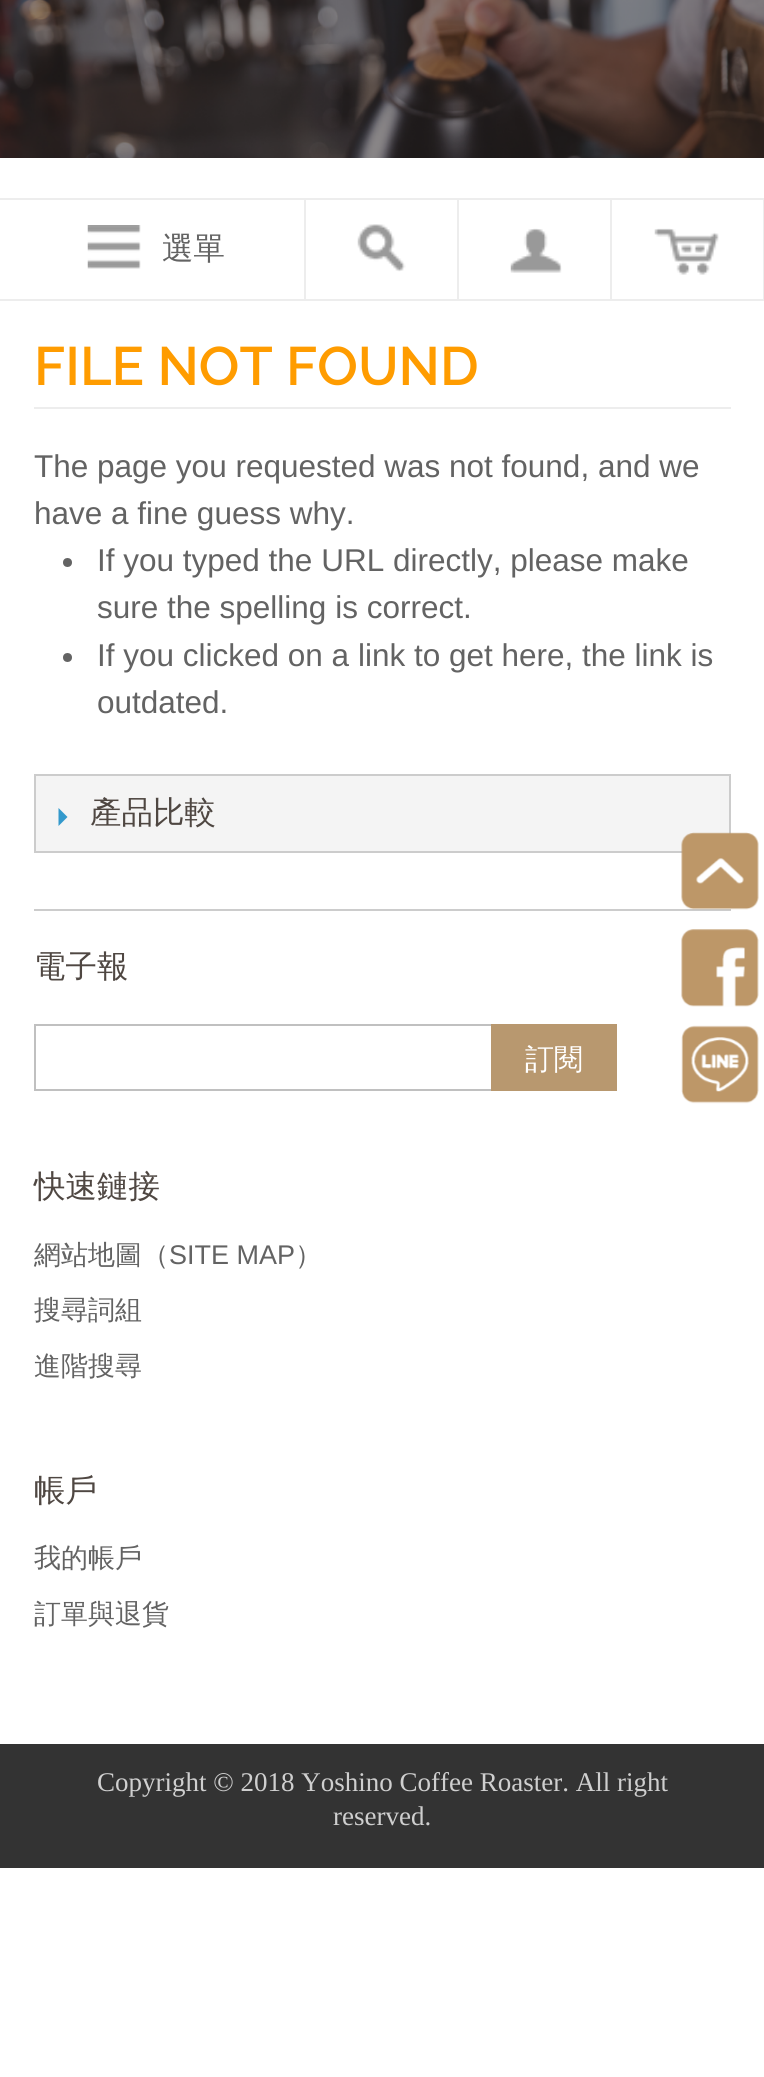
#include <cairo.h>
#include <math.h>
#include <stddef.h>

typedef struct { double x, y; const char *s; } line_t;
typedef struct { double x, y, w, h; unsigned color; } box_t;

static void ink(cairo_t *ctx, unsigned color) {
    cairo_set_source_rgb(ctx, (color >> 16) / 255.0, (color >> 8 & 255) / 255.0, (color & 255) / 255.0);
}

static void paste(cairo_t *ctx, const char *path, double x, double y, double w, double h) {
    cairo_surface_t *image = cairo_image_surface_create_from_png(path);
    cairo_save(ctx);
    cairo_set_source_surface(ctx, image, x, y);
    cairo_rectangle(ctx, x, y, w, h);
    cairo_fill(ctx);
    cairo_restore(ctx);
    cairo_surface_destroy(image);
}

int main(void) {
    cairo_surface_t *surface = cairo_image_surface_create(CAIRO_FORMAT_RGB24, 764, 2077);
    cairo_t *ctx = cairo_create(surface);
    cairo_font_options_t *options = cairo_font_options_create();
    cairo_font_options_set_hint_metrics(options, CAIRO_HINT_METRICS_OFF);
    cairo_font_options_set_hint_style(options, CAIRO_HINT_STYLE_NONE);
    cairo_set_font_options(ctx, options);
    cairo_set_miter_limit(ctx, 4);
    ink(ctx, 0xFFFFFF);
    cairo_paint(ctx);
    paste(ctx, "media/1.png", 0, 0, 764, 158);
    {
        static const box_t items[] = {
            {0, 198, 764, 2, 0xEDEDED},
            {0, 299, 764, 2, 0xEDEDED},
            {304, 200, 2, 99, 0xEDEDED},
        };
        for (size_t i = 0; i < sizeof items / sizeof *items; i++) {
            ink(ctx, items[i].color);
            cairo_rectangle(ctx, items[i].x, items[i].y, items[i].w, items[i].h);
            cairo_fill(ctx);
        }
    }
    paste(ctx, "media/2.png", 87, 225, 54, 44);
    cairo_select_font_face(ctx, "WenQuanYi Zen Hei Medium", CAIRO_FONT_SLANT_NORMAL, CAIRO_FONT_WEIGHT_NORMAL);
    cairo_set_font_size(ctx, 31.5);
    ink(ctx, 0x636363);
    cairo_move_to(ctx, 162, 259);
    cairo_show_text(ctx, "選單");
    ink(ctx, 0xEDEDED);
    cairo_rectangle(ctx, 457, 200, 2, 99);
    cairo_fill(ctx);
    paste(ctx, "media/3.png", 357, 224, 49, 48);
    cairo_rectangle(ctx, 610, 200, 2, 99);
    cairo_fill(ctx);
    paste(ctx, "media/4.png", 510, 228, 52, 45);
    cairo_rectangle(ctx, 763, 200, 1, 99);
    cairo_fill(ctx);
    paste(ctx, "media/5.png", 654, 228, 65, 47);
    cairo_rectangle(ctx, 34, 407, 697, 2);
    cairo_fill(ctx);
    cairo_select_font_face(ctx, "Raleway SemiBold", CAIRO_FONT_SLANT_NORMAL, CAIRO_FONT_WEIGHT_NORMAL);
    cairo_set_font_size(ctx, 54);
    ink(ctx, 0xFF9C00);
    cairo_move_to(ctx, 34, 385);
    cairo_show_text(ctx, "FILE NOT FOUND");
    cairo_select_font_face(ctx, "Liberation Sans", CAIRO_FONT_SLANT_NORMAL, CAIRO_FONT_WEIGHT_NORMAL);
    cairo_set_font_size(ctx, 31.5);
    ink(ctx, 0x636363);
    cairo_move_to(ctx, 34, 477);
    cairo_show_text(ctx, "The page you requested was not found, and we");
    cairo_move_to(ctx, 34, 524);
    cairo_show_text(ctx, "have a fine guess why.");
    cairo_new_path(ctx);
    cairo_arc(ctx, 67.5, 562.5, 4.5, 0, 2 * M_PI);
    cairo_fill(ctx);
    cairo_move_to(ctx, 97, 571);
    cairo_show_text(ctx, "If you typed the URL directly, please make");
    cairo_move_to(ctx, 97, 618);
    cairo_show_text(ctx, "sure the spelling is correct.");
    cairo_new_path(ctx);
    cairo_arc(ctx, 67.5, 657.5, 4.5, 0, 2 * M_PI);
    cairo_fill(ctx);
    cairo_move_to(ctx, 97, 666);
    cairo_show_text(ctx, "If you clicked on a link to get here, the link is");
    cairo_move_to(ctx, 97, 713);
    cairo_show_text(ctx, "outdated.");
    {
        static const box_t items[] = {
            {34, 851, 649, 2, 0xCCCCCC},
            {36, 776, 693, 75, 0xF4F4F4},
            {34, 774, 697, 2, 0xCCCCCC},
            {729, 774, 2, 60, 0xCCCCCC},
            {34, 774, 2, 77, 0xCCCCCC},
        };
        for (size_t i = 0; i < sizeof items / sizeof *items; i++) {
            ink(ctx, items[i].color);
            cairo_rectangle(ctx, items[i].x, items[i].y, items[i].w, items[i].h);
            cairo_fill(ctx);
        }
    }
    ink(ctx, 0x3399CC);
    cairo_new_path(ctx);
    cairo_move_to(ctx, 58.5, 826);
    cairo_line_to(ctx, 58.5, 808);
    cairo_line_to(ctx, 67.5, 817);
    cairo_close_path(ctx);
    cairo_fill(ctx);
    cairo_select_font_face(ctx, "WenQuanYi Zen Hei Medium", CAIRO_FONT_SLANT_NORMAL, CAIRO_FONT_WEIGHT_NORMAL);
    ink(ctx, 0x4F4742);
    cairo_move_to(ctx, 90, 823);
    cairo_show_text(ctx, "產品比較");
    ink(ctx, 0xCCCCCC);
    cairo_rectangle(ctx, 34, 909, 697, 2);
    cairo_fill(ctx);
    ink(ctx, 0x4F4742);
    cairo_move_to(ctx, 34, 977);
    cairo_show_text(ctx, "電子報");
    {
        static const box_t items[] = {
            {34, 1024, 457, 2, 0xC0C0C0},
            {34, 1089, 457, 2, 0xC0C0C0},
            {34, 1024, 2, 67, 0xC0C0C0},
            {491, 1024, 126, 67, 0xB8986F},
        };
        for (size_t i = 0; i < sizeof items / sizeof *items; i++) {
            ink(ctx, items[i].color);
            cairo_rectangle(ctx, items[i].x, items[i].y, items[i].w, items[i].h);
            cairo_fill(ctx);
        }
    }
    cairo_set_font_size(ctx, 29);
    ink(ctx, 0xFFFFFF);
    cairo_move_to(ctx, 525, 1069);
    cairo_show_text(ctx, "訂閱");
    cairo_set_font_size(ctx, 31.5);
    ink(ctx, 0x4F4742);
    cairo_move_to(ctx, 34, 1197);
    cairo_show_text(ctx, "快速鏈接");
    cairo_set_font_size(ctx, 27);
    ink(ctx, 0x636363);
    cairo_move_to(ctx, 34, 1264);
    cairo_show_text(ctx, "網站地圖（");
    cairo_select_font_face(ctx, "Liberation Sans", CAIRO_FONT_SLANT_NORMAL, CAIRO_FONT_WEIGHT_NORMAL);
    cairo_move_to(ctx, 169, 1264);
    cairo_show_text(ctx, "SITE MAP");
    cairo_select_font_face(ctx, "WenQuanYi Zen Hei Medium", CAIRO_FONT_SLANT_NORMAL, CAIRO_FONT_WEIGHT_NORMAL);
    {
        static const line_t items[] = {
            {295, 1264, "）"},
            {34, 1319, "搜尋詞組"},
            {34, 1375, "進階搜尋"},
        };
        for (size_t i = 0; i < sizeof items / sizeof *items; i++) {
            cairo_move_to(ctx, items[i].x, items[i].y);
            cairo_show_text(ctx, items[i].s);
        }
    }
    cairo_set_font_size(ctx, 31.5);
    ink(ctx, 0x4F4742);
    cairo_move_to(ctx, 34, 1501);
    cairo_show_text(ctx, "帳戶");
    cairo_set_font_size(ctx, 27);
    ink(ctx, 0x636363);
    cairo_move_to(ctx, 34, 1567);
    cairo_show_text(ctx, "我的帳戶");
    cairo_move_to(ctx, 34, 1623);
    cairo_show_text(ctx, "訂單與退貨");
    paste(ctx, "media/6.png", 681, 832, 78, 78);
    paste(ctx, "media/7.png", 681, 929, 78, 78);
    paste(ctx, "media/8.png", 681, 1025, 78, 79);
    ink(ctx, 0x333333);
    cairo_rectangle(ctx, 0, 1744, 764, 124);
    cairo_fill(ctx);
    cairo_select_font_face(ctx, "Liberation Serif", CAIRO_FONT_SLANT_NORMAL, CAIRO_FONT_WEIGHT_NORMAL);
    ink(ctx, 0xCFCFCF);
    cairo_move_to(ctx, 97, 1791);
    cairo_show_text(ctx, "Copyright © 2018 Yoshino Coffee Roaster. All right");
    cairo_move_to(ctx, 333, 1825);
    cairo_show_text(ctx, "reserved.");
    cairo_surface_write_to_png(surface, "image.png");
    cairo_font_options_destroy(options);
    cairo_destroy(ctx);
    cairo_surface_destroy(surface);
    return 0;
}
